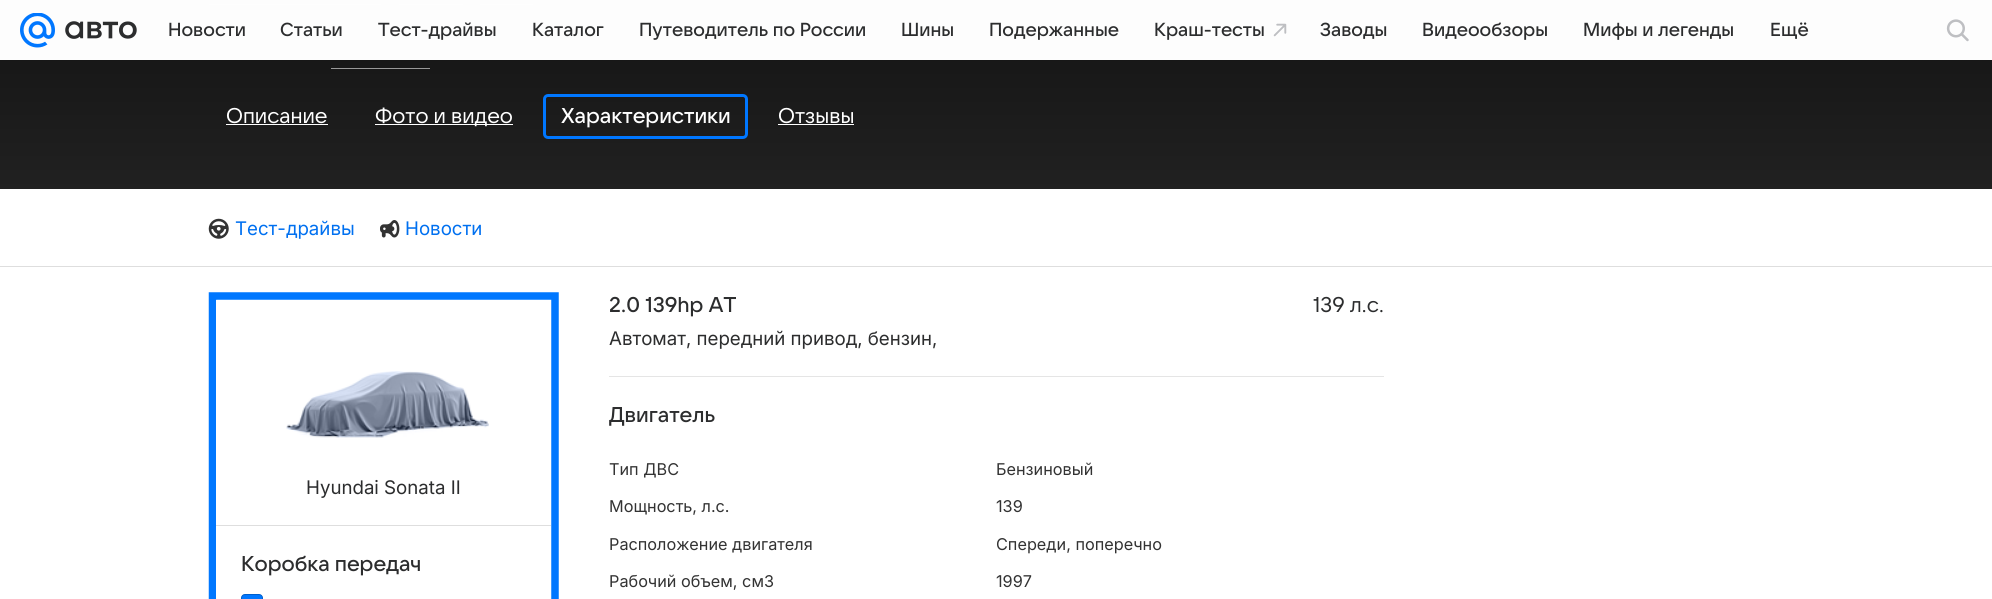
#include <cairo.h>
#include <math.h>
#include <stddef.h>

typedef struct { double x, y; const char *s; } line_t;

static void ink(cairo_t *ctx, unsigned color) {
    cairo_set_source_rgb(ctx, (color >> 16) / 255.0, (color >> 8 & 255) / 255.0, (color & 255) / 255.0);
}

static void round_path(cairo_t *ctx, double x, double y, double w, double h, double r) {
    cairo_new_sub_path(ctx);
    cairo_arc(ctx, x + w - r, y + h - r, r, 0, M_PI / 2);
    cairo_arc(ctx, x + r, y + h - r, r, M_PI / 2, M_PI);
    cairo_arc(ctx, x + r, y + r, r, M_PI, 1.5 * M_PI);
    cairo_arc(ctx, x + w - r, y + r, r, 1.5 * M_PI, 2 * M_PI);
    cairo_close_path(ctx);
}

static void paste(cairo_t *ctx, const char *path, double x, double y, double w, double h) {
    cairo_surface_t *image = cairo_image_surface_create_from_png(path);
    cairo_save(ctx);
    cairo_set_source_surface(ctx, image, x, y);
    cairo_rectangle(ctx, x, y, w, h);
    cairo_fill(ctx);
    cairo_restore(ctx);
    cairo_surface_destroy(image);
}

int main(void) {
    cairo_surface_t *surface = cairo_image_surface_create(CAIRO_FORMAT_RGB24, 1992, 599);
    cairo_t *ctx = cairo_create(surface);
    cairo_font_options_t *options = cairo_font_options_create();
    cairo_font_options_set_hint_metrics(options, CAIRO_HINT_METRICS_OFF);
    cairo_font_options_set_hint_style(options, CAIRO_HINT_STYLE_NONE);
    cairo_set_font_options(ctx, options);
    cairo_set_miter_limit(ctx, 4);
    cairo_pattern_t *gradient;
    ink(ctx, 0xFFFFFF);
    cairo_paint(ctx);
    gradient = cairo_pattern_create_linear(996, -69, 996, 189);
    cairo_pattern_add_color_stop_rgba(gradient, 0, 0.055, 0.055, 0.055, 1);
    cairo_pattern_add_color_stop_rgba(gradient, 1, 0.129, 0.129, 0.129, 1);
    cairo_set_source(ctx, gradient);
    cairo_pattern_destroy(gradient);
    cairo_rectangle(ctx, 0, 0, 1992, 189);
    cairo_fill(ctx);
    ink(ctx, 0x999999);
    cairo_rectangle(ctx, 209, 4, 172, 1);
    cairo_fill(ctx);
    cairo_rectangle(ctx, 399, 4, 64, 1);
    cairo_fill(ctx);
    cairo_rectangle(ctx, 480, 4, 53, 1);
    cairo_fill(ctx);
    cairo_set_source_rgba(ctx, 1, 1, 1, 0.9);
    cairo_rectangle(ctx, 0, 0, 1992, 60);
    cairo_fill(ctx);
    cairo_rectangle(ctx, 0, 0, 1992, 60);
    cairo_fill(ctx);
    paste(ctx, "media/1.png", 20, 13, 35, 35);
    paste(ctx, "media/2.png", 65, 21, 72, 18);
    cairo_select_font_face(ctx, "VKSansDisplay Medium", CAIRO_FONT_SLANT_NORMAL, CAIRO_FONT_WEIGHT_NORMAL);
    cairo_set_font_size(ctx, 18.75);
    ink(ctx, 0x2C2D2E);
    {
        static const line_t items[] = {
            {168, 36, "Новости"},
            {280, 36, "Статьи"},
            {378, 36, "Тест-драйвы"},
            {532, 36, "Каталог"},
            {639, 36, "Путеводитель по России"},
            {901, 36, "Шины"},
            {989, 36, "Подержанные"},
            {1154, 36, "Краш-тесты"},
        };
        for (size_t i = 0; i < sizeof items / sizeof *items; i++) {
            cairo_move_to(ctx, items[i].x, items[i].y);
            cairo_show_text(ctx, items[i].s);
        }
    }
    paste(ctx, "media/3.png", 1273, 23, 14, 14);
    {
        static const line_t items[] = {
            {1320, 36, "Заводы"},
            {1422, 36, "Видеообзоры"},
            {1583, 36, "Мифы и легенды"},
            {1770, 36, "Ещё"},
        };
        for (size_t i = 0; i < sizeof items / sizeof *items; i++) {
            cairo_move_to(ctx, items[i].x, items[i].y);
            cairo_show_text(ctx, items[i].s);
        }
    }
    paste(ctx, "media/4.png", 1946, 19, 23, 23);
    ink(ctx, 0x999999);
    cairo_rectangle(ctx, 331, 68, 99, 1);
    cairo_fill(ctx);
    cairo_select_font_face(ctx, "VKSansDisplay", CAIRO_FONT_SLANT_NORMAL, CAIRO_FONT_WEIGHT_NORMAL);
    cairo_set_font_size(ctx, 21.25);
    ink(ctx, 0xFFFFFF);
    cairo_move_to(ctx, 226, 123);
    cairo_show_text(ctx, "Описание");
    cairo_rectangle(ctx, 226, 124, 102, 1);
    cairo_fill(ctx);
    cairo_rectangle(ctx, 375, 124, 138, 1);
    cairo_fill(ctx);
    cairo_move_to(ctx, 375, 123);
    cairo_show_text(ctx, "Фото и видео");
    round_path(ctx, 544.5, 95.5, 202, 42, 3.5);
    ink(ctx, 0x0077FF);
    cairo_set_line_width(ctx, 3);
    cairo_stroke(ctx);
    cairo_select_font_face(ctx, "VKSansDisplay Medium", CAIRO_FONT_SLANT_NORMAL, CAIRO_FONT_WEIGHT_NORMAL);
    ink(ctx, 0xFFFFFF);
    cairo_move_to(ctx, 561, 123);
    cairo_show_text(ctx, "Характеристики");
    cairo_select_font_face(ctx, "VKSansDisplay", CAIRO_FONT_SLANT_NORMAL, CAIRO_FONT_WEIGHT_NORMAL);
    cairo_move_to(ctx, 778, 123);
    cairo_show_text(ctx, "Отзывы");
    cairo_rectangle(ctx, 778, 124, 76, 1);
    cairo_fill(ctx);
    ink(ctx, 0xDEDEDE);
    cairo_rectangle(ctx, 0, 266, 1992, 1);
    cairo_fill(ctx);
    paste(ctx, "media/5.png", 208, 218, 21, 21);
    cairo_select_font_face(ctx, "Inter", CAIRO_FONT_SLANT_NORMAL, CAIRO_FONT_WEIGHT_NORMAL);
    cairo_set_font_size(ctx, 18.75);
    ink(ctx, 0x0070F0);
    cairo_move_to(ctx, 235, 235);
    cairo_show_text(ctx, "Тест-драйвы");
    paste(ctx, "media/6.png", 380, 220, 20, 18);
    cairo_move_to(ctx, 405, 235);
    cairo_show_text(ctx, "Новости");
    cairo_new_path(ctx);
    cairo_move_to(ctx, 212.5, 296);
    cairo_line_to(ctx, 555, 296);
    cairo_line_to(ctx, 555, 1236);
    cairo_line_to(ctx, 212.5, 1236);
    cairo_close_path(ctx);
    ink(ctx, 0x0077FF);
    cairo_set_line_width(ctx, 7.5);
    cairo_stroke(ctx);
    ink(ctx, 0xFFFFFF);
    cairo_rectangle(ctx, 216, 300, 1, 299);
    cairo_fill(ctx);
    ink(ctx, 0xDEDEDE);
    cairo_rectangle(ctx, 216, 525, 335, 1);
    cairo_fill(ctx);
    paste(ctx, "media/7.png", 286, 371, 203, 67);
    ink(ctx, 0x2C2D2E);
    cairo_move_to(ctx, 306, 494);
    cairo_show_text(ctx, "Hyundai Sonata II");
    cairo_select_font_face(ctx, "VKSansDisplay Medium", CAIRO_FONT_SLANT_NORMAL, CAIRO_FONT_WEIGHT_NORMAL);
    cairo_set_font_size(ctx, 21.25);
    cairo_move_to(ctx, 241, 571);
    cairo_show_text(ctx, "Коробка передач");
    ink(ctx, 0x0077FF);
    round_path(ctx, 241.5, 594.5, 21, 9, 3.5);
    cairo_fill_preserve(ctx);
    ink(ctx, 0x005FCC);
    cairo_set_line_width(ctx, 1);
    cairo_stroke(ctx);
    ink(ctx, 0x2C2D2E);
    cairo_move_to(ctx, 609, 312);
    cairo_show_text(ctx, "2.0 139hp AT");
    cairo_select_font_face(ctx, "VKSansDisplay", CAIRO_FONT_SLANT_NORMAL, CAIRO_FONT_WEIGHT_NORMAL);
    cairo_move_to(ctx, 1313, 312);
    cairo_show_text(ctx, "139 л.с.");
    cairo_select_font_face(ctx, "Inter", CAIRO_FONT_SLANT_NORMAL, CAIRO_FONT_WEIGHT_NORMAL);
    cairo_set_font_size(ctx, 18.75);
    cairo_move_to(ctx, 609, 345);
    cairo_show_text(ctx, "Автомат, передний привод, бензин,");
    ink(ctx, 0xE5E5E5);
    cairo_rectangle(ctx, 609, 376, 775, 1);
    cairo_fill(ctx);
    cairo_select_font_face(ctx, "VKSansDisplay Medium", CAIRO_FONT_SLANT_NORMAL, CAIRO_FONT_WEIGHT_NORMAL);
    cairo_set_font_size(ctx, 21.25);
    ink(ctx, 0x2C2D2E);
    cairo_move_to(ctx, 609, 422);
    cairo_show_text(ctx, "Двигатель");
    cairo_select_font_face(ctx, "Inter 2", CAIRO_FONT_SLANT_NORMAL, CAIRO_FONT_WEIGHT_NORMAL);
    cairo_set_font_size(ctx, 16.25);
    ink(ctx, 0x333333);
    {
        static const line_t items[] = {
            {609, 475, "Тип ДВС"},
            {996, 475, "Бензиновый"},
            {609, 512, "Мощность, л.с."},
            {996, 512, "139"},
            {609, 550, "Расположение двигателя"},
            {996, 550, "Спереди, поперечно"},
            {609, 587, "Рабочий объем, см3"},
            {996, 587, "1997"},
        };
        for (size_t i = 0; i < sizeof items / sizeof *items; i++) {
            cairo_move_to(ctx, items[i].x, items[i].y);
            cairo_show_text(ctx, items[i].s);
        }
    }
    cairo_surface_write_to_png(surface, "image.png");
    cairo_font_options_destroy(options);
    cairo_destroy(ctx);
    cairo_surface_destroy(surface);
    return 0;
}
